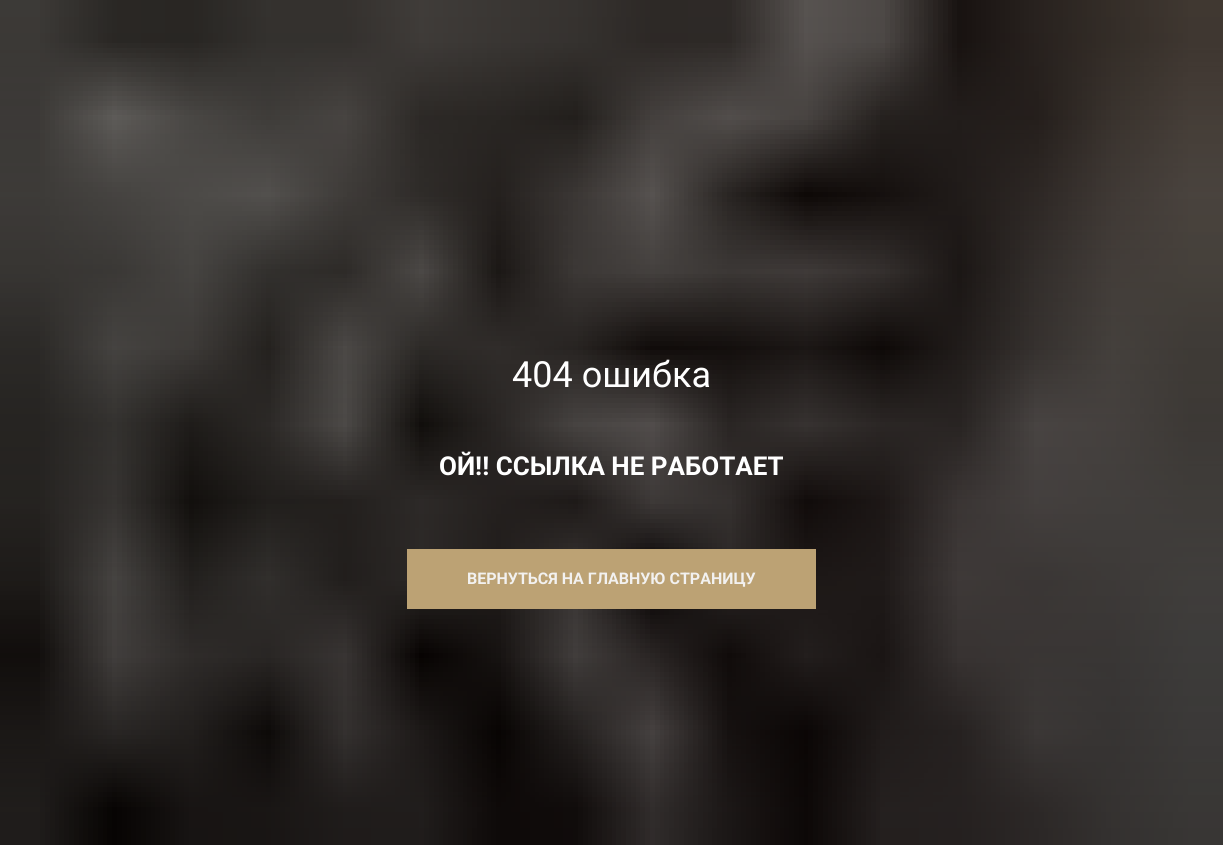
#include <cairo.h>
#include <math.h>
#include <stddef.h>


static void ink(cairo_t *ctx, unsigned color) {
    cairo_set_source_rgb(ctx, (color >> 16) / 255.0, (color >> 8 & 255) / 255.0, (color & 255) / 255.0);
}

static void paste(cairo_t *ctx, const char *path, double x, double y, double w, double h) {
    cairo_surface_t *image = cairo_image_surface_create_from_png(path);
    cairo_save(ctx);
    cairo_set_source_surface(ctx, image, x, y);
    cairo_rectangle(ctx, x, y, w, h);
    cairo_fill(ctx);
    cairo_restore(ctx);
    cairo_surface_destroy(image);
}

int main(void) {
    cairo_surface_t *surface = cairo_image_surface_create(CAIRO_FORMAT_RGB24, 1223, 845);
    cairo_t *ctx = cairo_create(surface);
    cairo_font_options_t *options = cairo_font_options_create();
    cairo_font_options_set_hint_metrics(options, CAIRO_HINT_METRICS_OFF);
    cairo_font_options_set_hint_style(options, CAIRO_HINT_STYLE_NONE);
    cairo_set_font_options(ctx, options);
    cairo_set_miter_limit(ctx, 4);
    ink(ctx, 0xFFFFFF);
    cairo_paint(ctx);
    paste(ctx, "media/1.png", 0, 0, 1223, 845);
    cairo_select_font_face(ctx, "Roboto", CAIRO_FONT_SLANT_NORMAL, CAIRO_FONT_WEIGHT_NORMAL);
    cairo_set_font_size(ctx, 36);
    ink(ctx, 0xFFFFFF);
    cairo_move_to(ctx, 512, 387);
    cairo_show_text(ctx, "404 ошибка");
    cairo_select_font_face(ctx, "Roboto", CAIRO_FONT_SLANT_NORMAL, CAIRO_FONT_WEIGHT_BOLD);
    cairo_set_font_size(ctx, 26);
    cairo_move_to(ctx, 439, 475);
    cairo_show_text(ctx, "ОЙ!! ССЫЛКА НЕ РАБОТАЕТ");
    ink(ctx, 0xBCA274);
    cairo_rectangle(ctx, 407, 549, 409, 60);
    cairo_fill(ctx);
    cairo_set_font_size(ctx, 16);
    ink(ctx, 0xF2F1F0);
    cairo_move_to(ctx, 467, 584);
    cairo_show_text(ctx, "ВЕРНУТЬСЯ НА ГЛАВНУЮ СТРАНИЦУ");
    cairo_surface_write_to_png(surface, "image.png");
    cairo_font_options_destroy(options);
    cairo_destroy(ctx);
    cairo_surface_destroy(surface);
    return 0;
}
